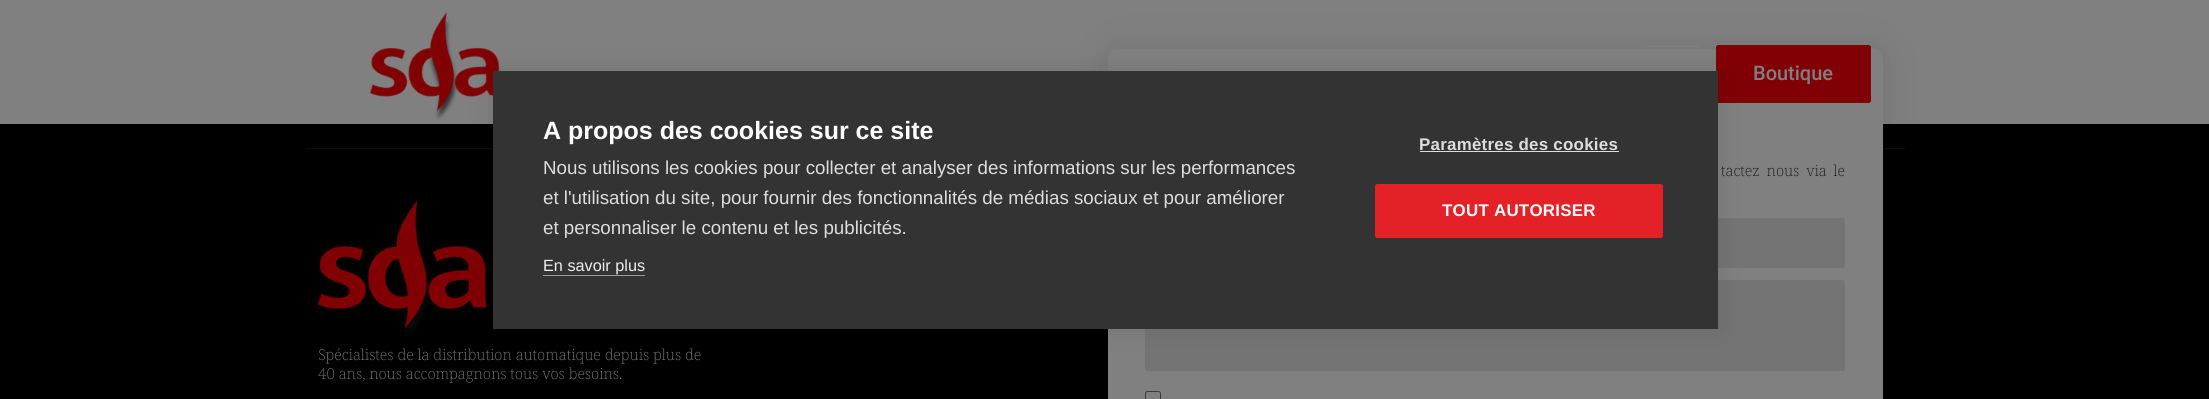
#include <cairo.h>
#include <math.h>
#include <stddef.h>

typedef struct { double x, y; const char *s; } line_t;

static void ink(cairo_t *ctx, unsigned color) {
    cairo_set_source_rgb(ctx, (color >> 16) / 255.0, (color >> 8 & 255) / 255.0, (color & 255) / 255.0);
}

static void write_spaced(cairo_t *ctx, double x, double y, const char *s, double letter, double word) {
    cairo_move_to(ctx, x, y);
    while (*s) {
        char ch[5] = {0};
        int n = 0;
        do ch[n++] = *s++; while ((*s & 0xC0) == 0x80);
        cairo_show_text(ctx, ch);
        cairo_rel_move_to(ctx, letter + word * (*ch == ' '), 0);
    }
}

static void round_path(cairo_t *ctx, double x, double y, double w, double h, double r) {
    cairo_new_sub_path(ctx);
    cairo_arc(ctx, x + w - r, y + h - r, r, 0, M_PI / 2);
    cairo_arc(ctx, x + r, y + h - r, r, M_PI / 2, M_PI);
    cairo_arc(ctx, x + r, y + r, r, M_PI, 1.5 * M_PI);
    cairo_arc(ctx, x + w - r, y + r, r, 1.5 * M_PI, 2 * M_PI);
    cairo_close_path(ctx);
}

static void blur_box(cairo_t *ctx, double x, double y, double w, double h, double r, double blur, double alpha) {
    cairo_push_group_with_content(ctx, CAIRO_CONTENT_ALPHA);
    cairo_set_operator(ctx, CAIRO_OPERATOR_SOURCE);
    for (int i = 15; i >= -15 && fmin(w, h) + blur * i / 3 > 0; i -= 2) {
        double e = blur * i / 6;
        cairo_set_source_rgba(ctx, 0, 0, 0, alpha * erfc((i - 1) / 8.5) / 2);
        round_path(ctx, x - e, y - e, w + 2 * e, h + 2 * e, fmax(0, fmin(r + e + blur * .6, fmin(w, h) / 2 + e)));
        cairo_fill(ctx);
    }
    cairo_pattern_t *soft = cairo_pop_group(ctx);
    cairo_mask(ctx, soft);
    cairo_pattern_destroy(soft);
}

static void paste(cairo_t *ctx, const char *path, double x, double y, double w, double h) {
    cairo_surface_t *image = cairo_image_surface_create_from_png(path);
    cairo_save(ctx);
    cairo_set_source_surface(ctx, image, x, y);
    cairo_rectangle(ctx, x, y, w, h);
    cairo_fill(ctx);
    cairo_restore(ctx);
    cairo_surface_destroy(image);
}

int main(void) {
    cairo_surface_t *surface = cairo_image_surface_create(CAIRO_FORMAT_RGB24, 2209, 399);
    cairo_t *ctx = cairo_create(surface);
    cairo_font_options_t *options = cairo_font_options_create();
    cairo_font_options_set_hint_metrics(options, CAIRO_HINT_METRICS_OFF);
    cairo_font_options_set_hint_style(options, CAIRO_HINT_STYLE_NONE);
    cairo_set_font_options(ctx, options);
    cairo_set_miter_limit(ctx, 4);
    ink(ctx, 0x808080);
    cairo_paint(ctx);
    ink(ctx, 0x000000);
    cairo_rectangle(ctx, 0, 124, 2209, 275);
    cairo_fill(ctx);
    ink(ctx, 0x000000);
    blur_box(ctx, 1108, 49, 775, 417, 10, 19, 0.1);
    ink(ctx, 0x808080);
    round_path(ctx, 1108, 49, 775, 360, 10);
    cairo_fill(ctx);
    cairo_set_source_rgba(ctx, 0.502, 0.502, 0.502, 0.1);
    cairo_rectangle(ctx, 305, 148, 1600, 1);
    cairo_fill(ctx);
    paste(ctx, "media/1.png", 370, 12, 308, 108);
    paste(ctx, "media/2.png", 1183, 70, 11, 1);
    round_path(ctx, 1641.5, 46.5, 57, 57, 2);
    ink(ctx, 0x808080);
    cairo_set_line_width(ctx, 1);
    cairo_stroke(ctx);
    ink(ctx, 0x800005);
    round_path(ctx, 1716, 45, 155, 58, 2.5);
    cairo_fill(ctx);
    cairo_select_font_face(ctx, "Roboto Medium", CAIRO_FONT_SLANT_NORMAL, CAIRO_FONT_WEIGHT_NORMAL);
    cairo_set_font_size(ctx, 20);
    ink(ctx, 0x808080);
    cairo_move_to(ctx, 1753, 80);
    cairo_show_text(ctx, "Boutique");
    ink(ctx, 0x747474);
    round_path(ctx, 1501, 218, 344, 50, 2.5);
    cairo_fill(ctx);
    round_path(ctx, 1145, 280, 700, 91, 2.5);
    cairo_fill(ctx);
    paste(ctx, "media/3.png", 317, 200, 170, 136);
    ink(ctx, 0x000000);
    blur_box(ctx, 493, 71, 1225, 258, 0, 12.5, 0.1);
    ink(ctx, 0x333333);
    cairo_rectangle(ctx, 493, 71, 1225, 258);
    cairo_fill(ctx);
    cairo_select_font_face(ctx, "Liberation Sans", CAIRO_FONT_SLANT_NORMAL, CAIRO_FONT_WEIGHT_BOLD);
    cairo_set_font_size(ctx, 25);
    ink(ctx, 0xFFFFFF);
    cairo_move_to(ctx, 543, 139);
    cairo_show_text(ctx, "A propos des cookies sur ce site");
    cairo_select_font_face(ctx, "Liberation Sans", CAIRO_FONT_SLANT_NORMAL, CAIRO_FONT_WEIGHT_NORMAL);
    cairo_set_font_size(ctx, 18.75);
    ink(ctx, 0xDDDDDD);
    {
        static const line_t items[] = {
            {543, 174, "Nous utilisons les cookies pour collecter et analyser des informations sur les performances"},
            {543, 204, "et l'utilisation du site, pour fournir des fonctionnalités de médias sociaux et pour améliorer"},
            {543, 234, "et personnaliser le contenu et les publicités."},
        };
        for (size_t i = 0; i < sizeof items / sizeof *items; i++) {
            cairo_move_to(ctx, items[i].x, items[i].y);
            cairo_show_text(ctx, items[i].s);
        }
    }
    cairo_set_font_size(ctx, 16.25);
    ink(ctx, 0xEEEEEE);
    cairo_move_to(ctx, 543, 271);
    cairo_show_text(ctx, "En savoir plus");
    ink(ctx, 0x999999);
    cairo_rectangle(ctx, 543, 275, 102, 1);
    cairo_fill(ctx);
    cairo_select_font_face(ctx, "Liberation Sans", CAIRO_FONT_SLANT_NORMAL, CAIRO_FONT_WEIGHT_BOLD);
    cairo_set_font_size(ctx, 16.9);
    ink(ctx, 0xDDDDDD);
    write_spaced(ctx, 1419, 150, "Paramètres des cookies", 0.25, 0);
    cairo_rectangle(ctx, 1420, 151, 199, 1);
    cairo_fill(ctx);
    ink(ctx, 0xE42127);
    round_path(ctx, 1375, 184, 288, 54, 2.5);
    cairo_fill(ctx);
    ink(ctx, 0xFFFFFF);
    write_spaced(ctx, 1442, 216, "TOUT AUTORISER", 0.25, 0);
    cairo_select_font_face(ctx, "Noto Serif ExtraLight", CAIRO_FONT_SLANT_NORMAL, CAIRO_FONT_WEIGHT_NORMAL);
    cairo_set_font_size(ctx, 15);
    ink(ctx, 0x111111);
    write_spaced(ctx, 1721, 176, "tactez nous via le", 0, 3);
    round_path(ctx, 1145.5, 391.5, 15, 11, 2);
    ink(ctx, 0x3B3B3B);
    cairo_stroke(ctx);
    ink(ctx, 0x808080);
    cairo_move_to(ctx, 318, 360);
    cairo_show_text(ctx, "Spécialistes de la distribution automatique depuis plus de");
    cairo_move_to(ctx, 318, 379);
    cairo_show_text(ctx, "40 ans, nous accompagnons tous vos besoins.");
    cairo_surface_write_to_png(surface, "image.png");
    cairo_font_options_destroy(options);
    cairo_destroy(ctx);
    cairo_surface_destroy(surface);
    return 0;
}
